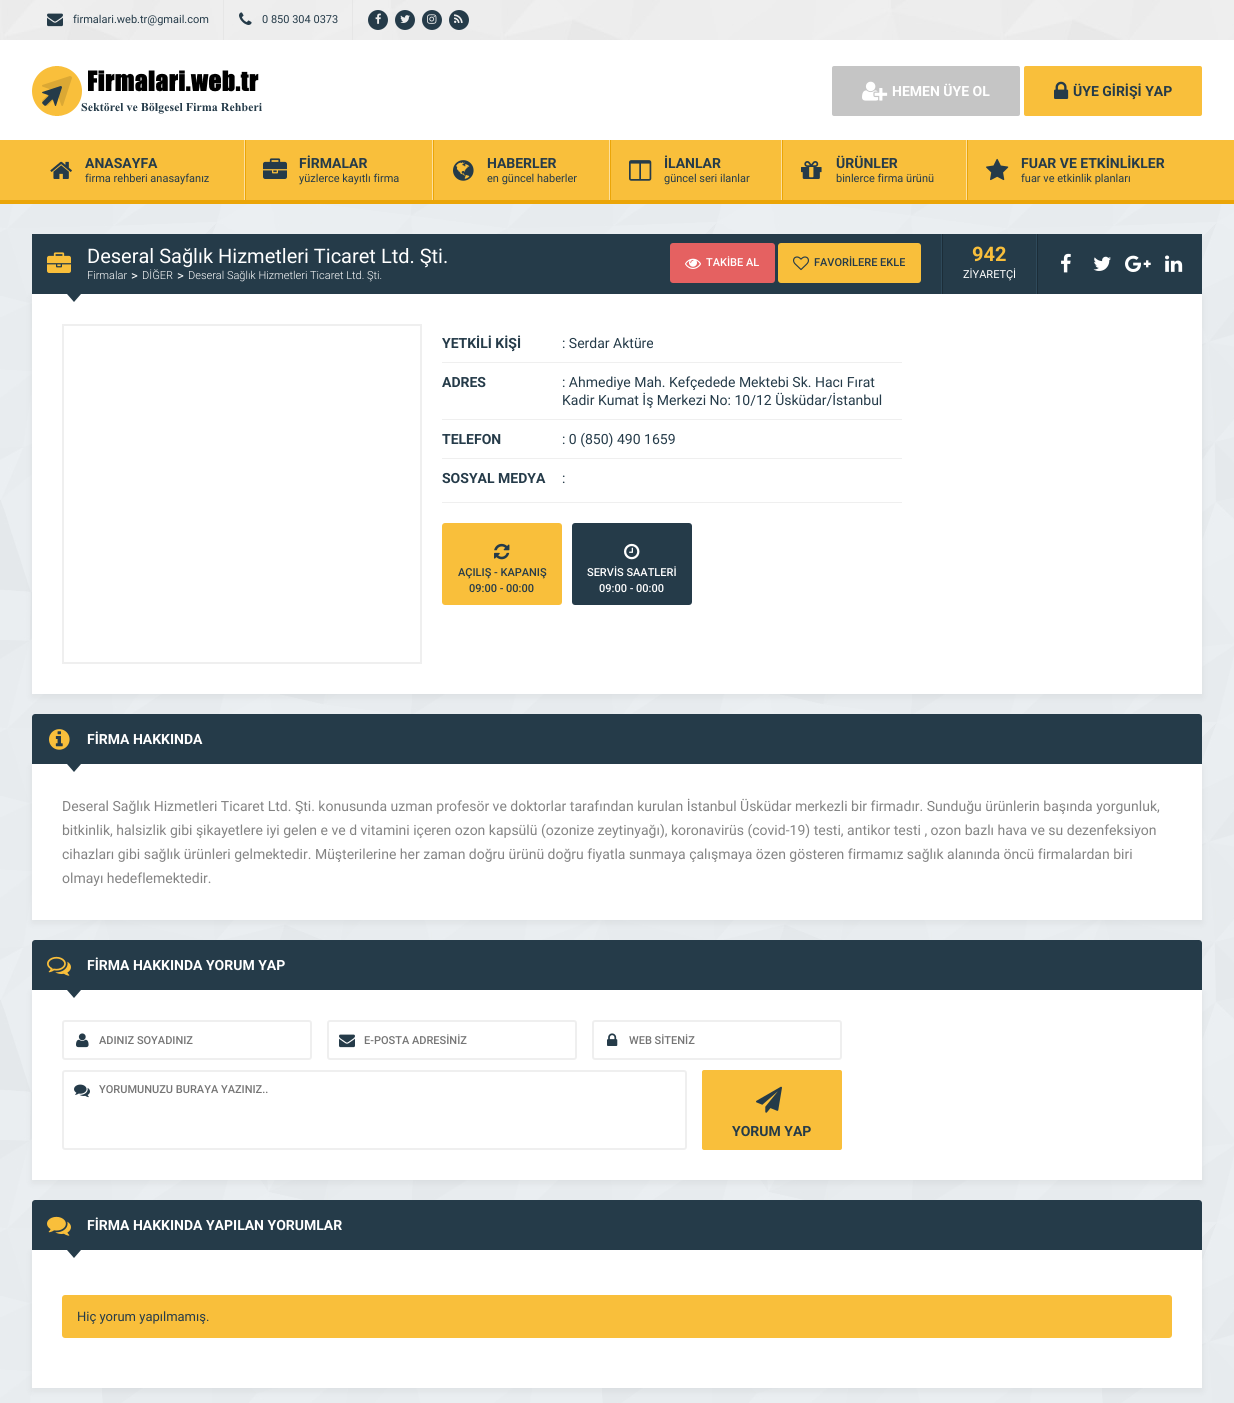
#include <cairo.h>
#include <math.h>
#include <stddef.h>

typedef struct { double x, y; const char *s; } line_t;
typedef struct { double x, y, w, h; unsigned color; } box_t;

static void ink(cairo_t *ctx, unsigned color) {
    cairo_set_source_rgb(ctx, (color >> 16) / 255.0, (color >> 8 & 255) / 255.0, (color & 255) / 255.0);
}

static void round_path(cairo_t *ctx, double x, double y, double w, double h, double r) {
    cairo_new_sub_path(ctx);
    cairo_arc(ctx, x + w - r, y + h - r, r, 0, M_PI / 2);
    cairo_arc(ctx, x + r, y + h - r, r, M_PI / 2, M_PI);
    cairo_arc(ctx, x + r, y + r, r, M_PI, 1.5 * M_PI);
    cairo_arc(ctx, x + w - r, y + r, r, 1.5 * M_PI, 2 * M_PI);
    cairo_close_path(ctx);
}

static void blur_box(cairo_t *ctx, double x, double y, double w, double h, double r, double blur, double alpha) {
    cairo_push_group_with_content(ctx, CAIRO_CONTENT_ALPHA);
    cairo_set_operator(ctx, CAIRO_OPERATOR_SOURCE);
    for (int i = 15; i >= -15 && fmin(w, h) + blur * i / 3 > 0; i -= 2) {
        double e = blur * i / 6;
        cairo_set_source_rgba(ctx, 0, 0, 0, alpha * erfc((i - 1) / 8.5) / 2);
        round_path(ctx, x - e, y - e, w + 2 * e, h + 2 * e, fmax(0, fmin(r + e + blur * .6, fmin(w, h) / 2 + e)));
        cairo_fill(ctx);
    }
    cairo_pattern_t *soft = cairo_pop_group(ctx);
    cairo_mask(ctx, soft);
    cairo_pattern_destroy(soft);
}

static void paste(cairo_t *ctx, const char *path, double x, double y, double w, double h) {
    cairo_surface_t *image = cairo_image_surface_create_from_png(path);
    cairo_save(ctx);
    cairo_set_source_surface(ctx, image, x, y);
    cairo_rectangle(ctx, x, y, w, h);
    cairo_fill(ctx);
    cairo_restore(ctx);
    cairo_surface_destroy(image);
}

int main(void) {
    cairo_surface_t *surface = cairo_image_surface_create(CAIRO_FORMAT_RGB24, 1234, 1403);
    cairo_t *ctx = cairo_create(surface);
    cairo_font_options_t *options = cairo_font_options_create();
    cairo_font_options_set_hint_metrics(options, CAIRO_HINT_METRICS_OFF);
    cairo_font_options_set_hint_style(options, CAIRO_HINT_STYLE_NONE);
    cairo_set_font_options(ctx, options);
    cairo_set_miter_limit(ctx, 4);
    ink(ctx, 0xFFFFFF);
    cairo_paint(ctx);
    paste(ctx, "media/1.png", 0, 204, 1234, 1199);
    paste(ctx, "media/2.png", 0, 0, 1234, 40);
    ink(ctx, 0xE6E6E6);
    cairo_rectangle(ctx, 223, 0, 1, 40);
    cairo_fill(ctx);
    paste(ctx, "media/3.png", 47, 13, 16, 14);
    cairo_select_font_face(ctx, "Roboto", CAIRO_FONT_SLANT_NORMAL, CAIRO_FONT_WEIGHT_NORMAL);
    cairo_set_font_size(ctx, 11);
    ink(ctx, 0x253B49);
    cairo_move_to(ctx, 73, 23);
    cairo_show_text(ctx, "firmalari.web.tr@gmail.com");
    ink(ctx, 0xE6E6E6);
    cairo_rectangle(ctx, 352, 0, 1, 40);
    cairo_fill(ctx);
    paste(ctx, "media/4.png", 239, 12, 13, 13);
    ink(ctx, 0x253B49);
    cairo_move_to(ctx, 262, 23);
    cairo_show_text(ctx, "0 850 304 0373");
    cairo_new_path(ctx);
    cairo_arc(ctx, 378, 20, 10, 0, 2 * M_PI);
    cairo_fill(ctx);
    paste(ctx, "media/5.png", 375, 13, 6, 11);
    cairo_arc(ctx, 405, 20, 10, 0, 2 * M_PI);
    cairo_fill(ctx);
    paste(ctx, "media/6.png", 400, 15, 10, 8);
    cairo_arc(ctx, 432, 20, 10, 0, 2 * M_PI);
    cairo_fill(ctx);
    paste(ctx, "media/7.png", 427, 14, 10, 10);
    cairo_arc(ctx, 459, 20, 10, 0, 2 * M_PI);
    cairo_fill(ctx);
    paste(ctx, "media/8.png", 454, 14, 9, 9);
    paste(ctx, "media/9.png", 32, 66, 230, 50);
    ink(ctx, 0xC5C5C5);
    round_path(ctx, 832, 66, 188, 50, 2);
    cairo_fill(ctx);
    paste(ctx, "media/10.png", 862, 81, 26, 20);
    cairo_select_font_face(ctx, "Roboto", CAIRO_FONT_SLANT_NORMAL, CAIRO_FONT_WEIGHT_BOLD);
    cairo_set_font_size(ctx, 14);
    ink(ctx, 0xFFFFFF);
    cairo_move_to(ctx, 892, 96);
    cairo_show_text(ctx, "HEMEN ÜYE OL");
    ink(ctx, 0xF9BF3B);
    round_path(ctx, 1024, 66, 178, 50, 2);
    cairo_fill(ctx);
    paste(ctx, "media/11.png", 1054, 81, 15, 18);
    ink(ctx, 0x253B49);
    cairo_move_to(ctx, 1073, 96);
    cairo_show_text(ctx, "ÜYE GİRİŞİ YAP");
    {
        static const box_t items[] = {
            {0, 140, 1234, 60, 0xF9BF3B},
            {0, 200, 1234, 4, 0xEBA507},
            {244, 140, 1, 60, 0xFCDF9E},
        };
        for (size_t i = 0; i < sizeof items / sizeof *items; i++) {
            ink(ctx, items[i].color);
            cairo_rectangle(ctx, items[i].x, items[i].y, items[i].w, items[i].h);
            cairo_fill(ctx);
        }
    }
    paste(ctx, "media/12.png", 50, 161, 22, 18);
    ink(ctx, 0x253B49);
    cairo_move_to(ctx, 85, 168);
    cairo_show_text(ctx, "ANASAYFA");
    cairo_select_font_face(ctx, "Roboto", CAIRO_FONT_SLANT_NORMAL, CAIRO_FONT_WEIGHT_NORMAL);
    cairo_set_font_size(ctx, 11);
    cairo_move_to(ctx, 85, 182);
    cairo_show_text(ctx, "firma rehberi anasayfanız");
    ink(ctx, 0xFCDF9E);
    cairo_rectangle(ctx, 432, 140, 1, 60);
    cairo_fill(ctx);
    ink(ctx, 0xEBA507);
    cairo_rectangle(ctx, 245, 140, 1, 60);
    cairo_fill(ctx);
    paste(ctx, "media/13.png", 263, 158, 24, 21);
    cairo_select_font_face(ctx, "Roboto", CAIRO_FONT_SLANT_NORMAL, CAIRO_FONT_WEIGHT_BOLD);
    cairo_set_font_size(ctx, 14);
    ink(ctx, 0x253B49);
    cairo_move_to(ctx, 299, 168);
    cairo_show_text(ctx, "FİRMALAR");
    cairo_select_font_face(ctx, "Roboto", CAIRO_FONT_SLANT_NORMAL, CAIRO_FONT_WEIGHT_NORMAL);
    cairo_set_font_size(ctx, 11);
    cairo_move_to(ctx, 299, 182);
    cairo_show_text(ctx, "yüzlerce kayıtlı firma");
    ink(ctx, 0xFCDF9E);
    cairo_rectangle(ctx, 609, 140, 1, 60);
    cairo_fill(ctx);
    ink(ctx, 0xEBA507);
    cairo_rectangle(ctx, 433, 140, 1, 60);
    cairo_fill(ctx);
    paste(ctx, "media/14.png", 453, 160, 21, 21);
    cairo_select_font_face(ctx, "Roboto", CAIRO_FONT_SLANT_NORMAL, CAIRO_FONT_WEIGHT_BOLD);
    cairo_set_font_size(ctx, 14);
    ink(ctx, 0x253B49);
    cairo_move_to(ctx, 487, 168);
    cairo_show_text(ctx, "HABERLER");
    cairo_select_font_face(ctx, "Roboto", CAIRO_FONT_SLANT_NORMAL, CAIRO_FONT_WEIGHT_NORMAL);
    cairo_set_font_size(ctx, 11);
    cairo_move_to(ctx, 487, 182);
    cairo_show_text(ctx, "en güncel haberler");
    ink(ctx, 0xFCDF9E);
    cairo_rectangle(ctx, 781, 140, 1, 60);
    cairo_fill(ctx);
    ink(ctx, 0xEBA507);
    cairo_rectangle(ctx, 610, 140, 1, 60);
    cairo_fill(ctx);
    paste(ctx, "media/15.png", 629, 160, 23, 21);
    cairo_select_font_face(ctx, "Roboto", CAIRO_FONT_SLANT_NORMAL, CAIRO_FONT_WEIGHT_BOLD);
    cairo_set_font_size(ctx, 14);
    ink(ctx, 0x253B49);
    cairo_move_to(ctx, 664, 168);
    cairo_show_text(ctx, "İLANLAR");
    cairo_select_font_face(ctx, "Roboto", CAIRO_FONT_SLANT_NORMAL, CAIRO_FONT_WEIGHT_NORMAL);
    cairo_set_font_size(ctx, 11);
    cairo_move_to(ctx, 664, 182);
    cairo_show_text(ctx, "güncel seri ilanlar");
    ink(ctx, 0xFCDF9E);
    cairo_rectangle(ctx, 966, 140, 1, 60);
    cairo_fill(ctx);
    ink(ctx, 0xEBA507);
    cairo_rectangle(ctx, 782, 140, 1, 60);
    cairo_fill(ctx);
    paste(ctx, "media/16.png", 801, 161, 21, 18);
    cairo_select_font_face(ctx, "Roboto", CAIRO_FONT_SLANT_NORMAL, CAIRO_FONT_WEIGHT_BOLD);
    cairo_set_font_size(ctx, 14);
    ink(ctx, 0x253B49);
    cairo_move_to(ctx, 836, 168);
    cairo_show_text(ctx, "ÜRÜNLER");
    cairo_select_font_face(ctx, "Roboto", CAIRO_FONT_SLANT_NORMAL, CAIRO_FONT_WEIGHT_NORMAL);
    cairo_set_font_size(ctx, 11);
    cairo_move_to(ctx, 836, 182);
    cairo_show_text(ctx, "binlerce firma ürünü");
    ink(ctx, 0xEBA507);
    cairo_rectangle(ctx, 967, 140, 1, 60);
    cairo_fill(ctx);
    paste(ctx, "media/17.png", 986, 158, 23, 23);
    cairo_select_font_face(ctx, "Roboto", CAIRO_FONT_SLANT_NORMAL, CAIRO_FONT_WEIGHT_BOLD);
    cairo_set_font_size(ctx, 14);
    ink(ctx, 0x253B49);
    cairo_move_to(ctx, 1021, 168);
    cairo_show_text(ctx, "FUAR VE ETKİNLİKLER");
    cairo_select_font_face(ctx, "Roboto", CAIRO_FONT_SLANT_NORMAL, CAIRO_FONT_WEIGHT_NORMAL);
    cairo_set_font_size(ctx, 11);
    cairo_move_to(ctx, 1021, 182);
    cairo_show_text(ctx, "fuar ve etkinlik planları");
    ink(ctx, 0x000000);
    blur_box(ctx, 32, 297, 1170, 400, 0, 4, 0.06);
    ink(ctx, 0x253B49);
    cairo_rectangle(ctx, 32, 234, 1170, 60);
    cairo_fill(ctx);
    paste(ctx, "media/18.png", 47, 252, 24, 21);
    cairo_set_font_size(ctx, 20);
    ink(ctx, 0xFFFFFF);
    cairo_move_to(ctx, 87, 263);
    cairo_show_text(ctx, "Deseral Sağlık Hizmetleri Ticaret Ltd. Şti.");
    cairo_select_font_face(ctx, "Roboto Light", CAIRO_FONT_SLANT_NORMAL, CAIRO_FONT_WEIGHT_NORMAL);
    cairo_set_font_size(ctx, 11);
    cairo_move_to(ctx, 87, 279);
    cairo_show_text(ctx, "Firmalar");
    cairo_select_font_face(ctx, "Roboto", CAIRO_FONT_SLANT_NORMAL, CAIRO_FONT_WEIGHT_NORMAL);
    cairo_set_font_size(ctx, 13);
    cairo_move_to(ctx, 131, 280);
    cairo_show_text(ctx, ">");
    cairo_select_font_face(ctx, "Roboto Light", CAIRO_FONT_SLANT_NORMAL, CAIRO_FONT_WEIGHT_NORMAL);
    cairo_set_font_size(ctx, 11);
    cairo_move_to(ctx, 142, 279);
    cairo_show_text(ctx, "DİĞER");
    cairo_select_font_face(ctx, "Roboto", CAIRO_FONT_SLANT_NORMAL, CAIRO_FONT_WEIGHT_NORMAL);
    cairo_set_font_size(ctx, 13);
    cairo_move_to(ctx, 177, 280);
    cairo_show_text(ctx, ">");
    cairo_select_font_face(ctx, "Roboto Light", CAIRO_FONT_SLANT_NORMAL, CAIRO_FONT_WEIGHT_NORMAL);
    cairo_set_font_size(ctx, 11);
    cairo_move_to(ctx, 188, 279);
    cairo_show_text(ctx, "Deseral Sağlık Hizmetleri Ticaret Ltd. Şti.");
    ink(ctx, 0x2E495A);
    cairo_rectangle(ctx, 941, 234, 1, 60);
    cairo_fill(ctx);
    ink(ctx, 0xE56161);
    round_path(ctx, 670, 243, 105, 40, 3);
    cairo_fill(ctx);
    paste(ctx, "media/19.png", 685, 258, 16, 11);
    cairo_select_font_face(ctx, "Roboto Medium", CAIRO_FONT_SLANT_NORMAL, CAIRO_FONT_WEIGHT_NORMAL);
    ink(ctx, 0xFFFFFF);
    cairo_move_to(ctx, 706, 266);
    cairo_show_text(ctx, "TAKİBE AL");
    ink(ctx, 0xF9BF3B);
    round_path(ctx, 778, 243, 143, 40, 3);
    cairo_fill(ctx);
    paste(ctx, "media/20.png", 793, 256, 16, 15);
    ink(ctx, 0x253B49);
    cairo_move_to(ctx, 814, 266);
    cairo_show_text(ctx, "FAVORİLERE EKLE");
    ink(ctx, 0x2E495A);
    cairo_rectangle(ctx, 1036, 234, 1, 60);
    cairo_fill(ctx);
    ink(ctx, 0x1C2D38);
    cairo_rectangle(ctx, 942, 234, 1, 60);
    cairo_fill(ctx);
    cairo_select_font_face(ctx, "Roboto", CAIRO_FONT_SLANT_NORMAL, CAIRO_FONT_WEIGHT_BOLD);
    cairo_set_font_size(ctx, 20);
    ink(ctx, 0xF9BF3B);
    cairo_move_to(ctx, 972, 261);
    cairo_show_text(ctx, "942");
    cairo_select_font_face(ctx, "Roboto", CAIRO_FONT_SLANT_NORMAL, CAIRO_FONT_WEIGHT_NORMAL);
    cairo_set_font_size(ctx, 11);
    ink(ctx, 0xFFFFFF);
    cairo_move_to(ctx, 963, 278);
    cairo_show_text(ctx, "ZİYARETÇİ");
    ink(ctx, 0x1C2D38);
    cairo_rectangle(ctx, 1037, 234, 1, 60);
    cairo_fill(ctx);
    paste(ctx, "media/21.png", 1061, 253, 10, 20);
    paste(ctx, "media/22.png", 1093, 256, 18, 15);
    paste(ctx, "media/23.png", 1125, 255, 26, 17);
    paste(ctx, "media/24.png", 1165, 255, 18, 17);
    ink(ctx, 0xFFFFFF);
    cairo_rectangle(ctx, 32, 294, 1170, 400);
    cairo_fill(ctx);
    ink(ctx, 0x253B49);
    cairo_new_path(ctx);
    cairo_move_to(ctx, 67, 294);
    cairo_line_to(ctx, 81, 294);
    cairo_line_to(ctx, 74, 302);
    cairo_close_path(ctx);
    cairo_fill(ctx);
    cairo_rectangle(ctx, 63, 325, 358, 338);
    ink(ctx, 0xEFEFEF);
    cairo_stroke(ctx);
    cairo_rectangle(ctx, 442, 362, 460, 1);
    cairo_fill(ctx);
    cairo_select_font_face(ctx, "Roboto", CAIRO_FONT_SLANT_NORMAL, CAIRO_FONT_WEIGHT_BOLD);
    cairo_set_font_size(ctx, 14);
    ink(ctx, 0x253B49);
    cairo_move_to(ctx, 442, 348);
    cairo_show_text(ctx, "YETKİLİ KİŞİ");
    cairo_select_font_face(ctx, "Roboto", CAIRO_FONT_SLANT_NORMAL, CAIRO_FONT_WEIGHT_NORMAL);
    cairo_move_to(ctx, 562, 348);
    cairo_show_text(ctx, ": Serdar Aktüre");
    ink(ctx, 0xEFEFEF);
    cairo_rectangle(ctx, 442, 419, 460, 1);
    cairo_fill(ctx);
    cairo_select_font_face(ctx, "Roboto", CAIRO_FONT_SLANT_NORMAL, CAIRO_FONT_WEIGHT_BOLD);
    ink(ctx, 0x253B49);
    cairo_move_to(ctx, 442, 387);
    cairo_show_text(ctx, "ADRES");
    cairo_select_font_face(ctx, "Roboto", CAIRO_FONT_SLANT_NORMAL, CAIRO_FONT_WEIGHT_NORMAL);
    cairo_move_to(ctx, 562, 387);
    cairo_show_text(ctx, ": Ahmediye Mah. Kefçedede Mektebi Sk. Hacı Fırat");
    cairo_move_to(ctx, 562, 405);
    cairo_show_text(ctx, "Kadir Kumat İş Merkezi No: 10/12 Üsküdar/İstanbul");
    ink(ctx, 0xEFEFEF);
    cairo_rectangle(ctx, 442, 458, 460, 1);
    cairo_fill(ctx);
    cairo_select_font_face(ctx, "Roboto", CAIRO_FONT_SLANT_NORMAL, CAIRO_FONT_WEIGHT_BOLD);
    ink(ctx, 0x253B49);
    cairo_move_to(ctx, 442, 444);
    cairo_show_text(ctx, "TELEFON");
    cairo_select_font_face(ctx, "Roboto", CAIRO_FONT_SLANT_NORMAL, CAIRO_FONT_WEIGHT_NORMAL);
    cairo_move_to(ctx, 562, 444);
    cairo_show_text(ctx, ": 0 (850) 490 1659");
    cairo_select_font_face(ctx, "Roboto", CAIRO_FONT_SLANT_NORMAL, CAIRO_FONT_WEIGHT_BOLD);
    cairo_move_to(ctx, 442, 483);
    cairo_show_text(ctx, "SOSYAL MEDYA");
    cairo_select_font_face(ctx, "Roboto", CAIRO_FONT_SLANT_NORMAL, CAIRO_FONT_WEIGHT_NORMAL);
    cairo_move_to(ctx, 562, 483);
    cairo_show_text(ctx, ":");
    ink(ctx, 0xEFEFEF);
    cairo_rectangle(ctx, 442, 502, 460, 1);
    cairo_fill(ctx);
    ink(ctx, 0xF9BF3B);
    round_path(ctx, 442, 523, 120, 82, 3);
    cairo_fill(ctx);
    paste(ctx, "media/25.png", 494, 543, 16, 17);
    cairo_select_font_face(ctx, "Roboto Medium", CAIRO_FONT_SLANT_NORMAL, CAIRO_FONT_WEIGHT_NORMAL);
    cairo_set_font_size(ctx, 11);
    ink(ctx, 0x253B49);
    cairo_move_to(ctx, 458, 576);
    cairo_show_text(ctx, "AÇILIŞ - KAPANIŞ");
    cairo_move_to(ctx, 469, 592);
    cairo_show_text(ctx, "09:00 - 00:00");
    round_path(ctx, 572, 523, 120, 82, 3);
    cairo_fill(ctx);
    paste(ctx, "media/26.png", 624, 543, 16, 17);
    ink(ctx, 0xFFFFFF);
    cairo_move_to(ctx, 587, 576);
    cairo_show_text(ctx, "SERVİS SAATLERİ");
    cairo_move_to(ctx, 599, 592);
    cairo_show_text(ctx, "09:00 - 00:00");
    ink(ctx, 0x000000);
    blur_box(ctx, 32, 767, 1170, 156, 0, 4, 0.06);
    ink(ctx, 0x253B49);
    cairo_new_path(ctx);
    cairo_move_to(ctx, 35, 714);
    cairo_line_to(ctx, 1199, 714);
    cairo_curve_to(ctx, 1200.5, 714, 1202, 715.5, 1202, 717);
    cairo_line_to(ctx, 1202, 764);
    cairo_line_to(ctx, 32, 764);
    cairo_line_to(ctx, 32, 717);
    cairo_curve_to(ctx, 32, 715.5, 33.5, 714, 35, 714);
    cairo_close_path(ctx);
    cairo_fill(ctx);
    paste(ctx, "media/27.png", 49, 729, 21, 21);
    cairo_select_font_face(ctx, "Roboto", CAIRO_FONT_SLANT_NORMAL, CAIRO_FONT_WEIGHT_BOLD);
    cairo_set_font_size(ctx, 14);
    ink(ctx, 0xFFFFFF);
    cairo_move_to(ctx, 87, 744);
    cairo_show_text(ctx, "FİRMA HAKKINDA");
    cairo_rectangle(ctx, 32, 764, 1170, 156);
    cairo_fill(ctx);
    ink(ctx, 0x253B49);
    cairo_new_path(ctx);
    cairo_move_to(ctx, 67, 764);
    cairo_line_to(ctx, 81, 764);
    cairo_line_to(ctx, 74, 772);
    cairo_close_path(ctx);
    cairo_fill(ctx);
    cairo_select_font_face(ctx, "Roboto", CAIRO_FONT_SLANT_NORMAL, CAIRO_FONT_WEIGHT_NORMAL);
    ink(ctx, 0x848484);
    {
        static const line_t items[] = {
            {62, 811, "Deseral Sağlık Hizmetleri Ticaret Ltd. Şti. konusunda uzman profesör ve doktorlar tarafından kurulan İstanbul Üsküdar merkezli bir firmadır. Sunduğu ürünlerin başında yorgunluk,"},
            {62, 835, "bitkinlik, halsizlik gibi şikayetlere iyi gelen e ve d vitamini içeren ozon kapsülü (ozonize zeytinyağı), koronavirüs (covid-19) testi, antikor testi , ozon bazlı hava ve su dezenfeksiyon"},
            {62, 859, "cihazları gibi sağlık ürünleri gelmektedir. Müşterilerine her zaman doğru ürünü doğru fiyatla sunmaya çalışmaya özen gösteren firmamız sağlık alanında öncü firmalardan biri"},
            {62, 883, "olmayı hedeflemektedir."},
        };
        for (size_t i = 0; i < sizeof items / sizeof *items; i++) {
            cairo_move_to(ctx, items[i].x, items[i].y);
            cairo_show_text(ctx, items[i].s);
        }
    }
    ink(ctx, 0x000000);
    blur_box(ctx, 32, 993, 1170, 190, 0, 4, 0.06);
    ink(ctx, 0x253B49);
    cairo_new_path(ctx);
    cairo_move_to(ctx, 35, 940);
    cairo_line_to(ctx, 1199, 940);
    cairo_curve_to(ctx, 1200.5, 940, 1202, 941.5, 1202, 943);
    cairo_line_to(ctx, 1202, 990);
    cairo_line_to(ctx, 32, 990);
    cairo_line_to(ctx, 32, 943);
    cairo_curve_to(ctx, 32, 941.5, 33.5, 940, 35, 940);
    cairo_close_path(ctx);
    cairo_fill(ctx);
    paste(ctx, "media/28.png", 47, 956, 24, 20);
    cairo_select_font_face(ctx, "Roboto", CAIRO_FONT_SLANT_NORMAL, CAIRO_FONT_WEIGHT_BOLD);
    ink(ctx, 0xFFFFFF);
    cairo_move_to(ctx, 87, 970);
    cairo_show_text(ctx, "FİRMA HAKKINDA YORUM YAP");
    cairo_rectangle(ctx, 32, 990, 1170, 190);
    cairo_fill(ctx);
    ink(ctx, 0x253B49);
    cairo_new_path(ctx);
    cairo_move_to(ctx, 67, 990);
    cairo_line_to(ctx, 81, 990);
    cairo_line_to(ctx, 74, 998);
    cairo_close_path(ctx);
    cairo_fill(ctx);
    round_path(ctx, 63, 1021, 248, 38, 2);
    ink(ctx, 0xEFEFEF);
    cairo_stroke(ctx);
    paste(ctx, "media/29.png", 76, 1033, 13, 15);
    cairo_select_font_face(ctx, "Roboto Medium", CAIRO_FONT_SLANT_NORMAL, CAIRO_FONT_WEIGHT_NORMAL);
    cairo_set_font_size(ctx, 11);
    ink(ctx, 0x757575);
    cairo_move_to(ctx, 99, 1044);
    cairo_show_text(ctx, "ADINIZ SOYADINIZ");
    round_path(ctx, 328, 1021, 248, 38, 2);
    ink(ctx, 0xEFEFEF);
    cairo_stroke(ctx);
    paste(ctx, "media/30.png", 339, 1034, 16, 14);
    ink(ctx, 0x757575);
    cairo_move_to(ctx, 364, 1044);
    cairo_show_text(ctx, "E-POSTA ADRESİNİZ");
    round_path(ctx, 593, 1021, 248, 38, 2);
    ink(ctx, 0xEFEFEF);
    cairo_stroke(ctx);
    paste(ctx, "media/31.png", 607, 1033, 11, 13);
    ink(ctx, 0x757575);
    cairo_move_to(ctx, 629, 1044);
    cairo_show_text(ctx, "WEB SİTENİZ");
    round_path(ctx, 63, 1071, 623, 78, 2);
    ink(ctx, 0xEFEFEF);
    cairo_stroke(ctx);
    paste(ctx, "media/32.png", 74, 1084, 16, 14);
    ink(ctx, 0x757575);
    cairo_move_to(ctx, 99, 1093);
    cairo_show_text(ctx, "YORUMUNUZU BURAYA YAZINIZ..");
    ink(ctx, 0xF9BF3B);
    round_path(ctx, 702, 1070, 140, 80, 2);
    cairo_fill(ctx);
    paste(ctx, "media/33.png", 756, 1086, 26, 27);
    cairo_select_font_face(ctx, "Roboto", CAIRO_FONT_SLANT_NORMAL, CAIRO_FONT_WEIGHT_BOLD);
    cairo_set_font_size(ctx, 14);
    ink(ctx, 0x253B49);
    cairo_move_to(ctx, 732, 1136);
    cairo_show_text(ctx, "YORUM YAP");
    ink(ctx, 0x000000);
    blur_box(ctx, 32, 1253, 1170, 138, 0, 4, 0.06);
    ink(ctx, 0x253B49);
    cairo_new_path(ctx);
    cairo_move_to(ctx, 35, 1200);
    cairo_line_to(ctx, 1199, 1200);
    cairo_curve_to(ctx, 1200.5, 1200, 1202, 1201.5, 1202, 1203);
    cairo_line_to(ctx, 1202, 1250);
    cairo_line_to(ctx, 32, 1250);
    cairo_line_to(ctx, 32, 1203);
    cairo_curve_to(ctx, 32, 1201.5, 33.5, 1200, 35, 1200);
    cairo_close_path(ctx);
    cairo_fill(ctx);
    paste(ctx, "media/34.png", 47, 1216, 24, 20);
    ink(ctx, 0xFFFFFF);
    cairo_move_to(ctx, 87, 1230);
    cairo_show_text(ctx, "FİRMA HAKKINDA YAPILAN YORUMLAR");
    cairo_rectangle(ctx, 32, 1250, 1170, 138);
    cairo_fill(ctx);
    ink(ctx, 0x253B49);
    cairo_new_path(ctx);
    cairo_move_to(ctx, 67, 1250);
    cairo_line_to(ctx, 81, 1250);
    cairo_line_to(ctx, 74, 1258);
    cairo_close_path(ctx);
    cairo_fill(ctx);
    ink(ctx, 0xF9BF3B);
    round_path(ctx, 62, 1295, 1110, 43, 3);
    cairo_fill(ctx);
    cairo_select_font_face(ctx, "Roboto", CAIRO_FONT_SLANT_NORMAL, CAIRO_FONT_WEIGHT_NORMAL);
    cairo_set_font_size(ctx, 13);
    ink(ctx, 0x253B49);
    cairo_move_to(ctx, 77, 1321);
    cairo_show_text(ctx, "Hiç yorum yapılmamış.");
    cairo_surface_write_to_png(surface, "image.png");
    cairo_font_options_destroy(options);
    cairo_destroy(ctx);
    cairo_surface_destroy(surface);
    return 0;
}
